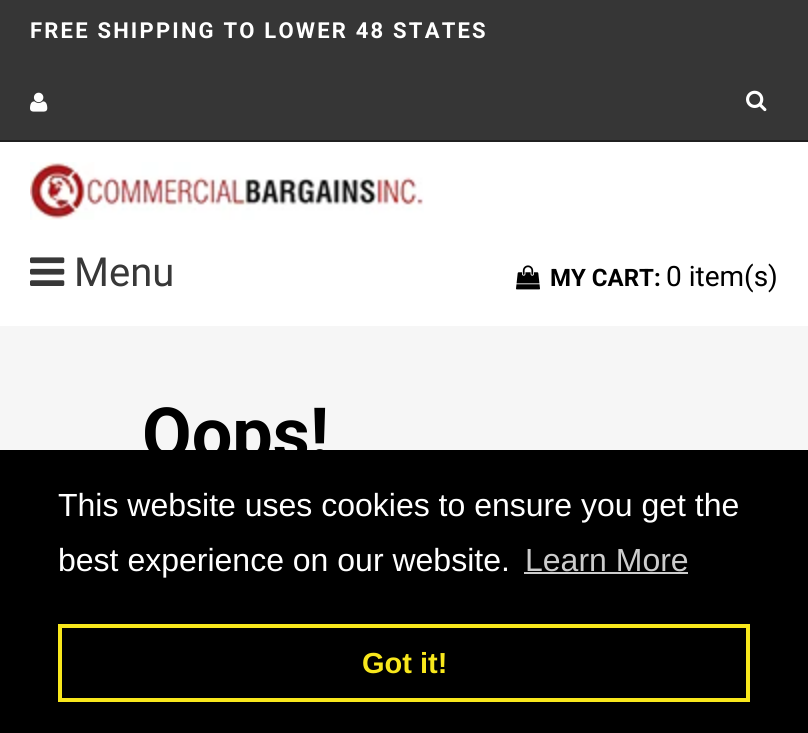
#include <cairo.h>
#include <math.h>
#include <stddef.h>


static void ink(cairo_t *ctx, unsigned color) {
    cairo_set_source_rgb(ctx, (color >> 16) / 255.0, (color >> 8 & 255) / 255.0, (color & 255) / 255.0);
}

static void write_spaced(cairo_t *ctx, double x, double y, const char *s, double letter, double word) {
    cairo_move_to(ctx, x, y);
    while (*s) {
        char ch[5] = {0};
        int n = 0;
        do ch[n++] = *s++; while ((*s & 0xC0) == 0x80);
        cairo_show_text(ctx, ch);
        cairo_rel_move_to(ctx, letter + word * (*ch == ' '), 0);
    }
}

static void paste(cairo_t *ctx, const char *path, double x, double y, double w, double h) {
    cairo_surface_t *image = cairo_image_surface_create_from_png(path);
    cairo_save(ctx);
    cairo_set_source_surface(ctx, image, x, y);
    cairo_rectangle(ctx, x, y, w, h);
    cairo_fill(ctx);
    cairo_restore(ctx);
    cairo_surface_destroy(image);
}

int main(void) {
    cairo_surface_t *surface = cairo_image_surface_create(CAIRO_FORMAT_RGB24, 808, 733);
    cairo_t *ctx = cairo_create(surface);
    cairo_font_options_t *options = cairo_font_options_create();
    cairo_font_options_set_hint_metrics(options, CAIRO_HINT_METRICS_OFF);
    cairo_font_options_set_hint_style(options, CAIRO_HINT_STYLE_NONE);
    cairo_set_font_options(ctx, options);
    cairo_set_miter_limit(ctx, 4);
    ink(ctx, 0xFFFFFF);
    cairo_paint(ctx);
    ink(ctx, 0x363636);
    cairo_rectangle(ctx, 0, 0, 808, 140);
    cairo_fill(ctx);
    ink(ctx, 0x202020);
    cairo_rectangle(ctx, 0, 140, 808, 2);
    cairo_fill(ctx);
    cairo_select_font_face(ctx, "Roboto", CAIRO_FONT_SLANT_NORMAL, CAIRO_FONT_WEIGHT_BOLD);
    cairo_set_font_size(ctx, 22);
    ink(ctx, 0xFFFFFF);
    write_spaced(ctx, 30, 38, "FREE SHIPPING TO LOWER 48 STATES", 2.2, 0);
    paste(ctx, "media/1.png", 30, 92, 18, 20);
    paste(ctx, "media/2.png", 746, 90, 21, 22);
    paste(ctx, "media/3.png", 30, 162, 394, 58);
    paste(ctx, "media/4.png", 30, 257, 35, 29);
    cairo_select_font_face(ctx, "Roboto", CAIRO_FONT_SLANT_NORMAL, CAIRO_FONT_WEIGHT_NORMAL);
    cairo_set_font_size(ctx, 40);
    ink(ctx, 0x383838);
    cairo_move_to(ctx, 74, 286);
    cairo_show_text(ctx, "Menu");
    paste(ctx, "media/5.png", 516, 265, 24, 25);
    cairo_select_font_face(ctx, "Roboto", CAIRO_FONT_SLANT_NORMAL, CAIRO_FONT_WEIGHT_BOLD);
    cairo_set_font_size(ctx, 24);
    ink(ctx, 0x000000);
    cairo_move_to(ctx, 550, 286);
    cairo_show_text(ctx, "MY CART:");
    cairo_select_font_face(ctx, "Roboto", CAIRO_FONT_SLANT_NORMAL, CAIRO_FONT_WEIGHT_NORMAL);
    cairo_set_font_size(ctx, 28);
    cairo_move_to(ctx, 666, 286);
    cairo_show_text(ctx, "0 item(s)");
    ink(ctx, 0xF6F6F6);
    cairo_rectangle(ctx, 0, 326, 808, 124);
    cairo_fill(ctx);
    cairo_select_font_face(ctx, "Roboto", CAIRO_FONT_SLANT_NORMAL, CAIRO_FONT_WEIGHT_BOLD);
    cairo_set_font_size(ctx, 72);
    ink(ctx, 0x000000);
    cairo_move_to(ctx, 142, 459);
    cairo_show_text(ctx, "Oops!");
    cairo_rectangle(ctx, 0, 450, 808, 283);
    cairo_fill(ctx);
    cairo_select_font_face(ctx, "Liberation Sans", CAIRO_FONT_SLANT_NORMAL, CAIRO_FONT_WEIGHT_NORMAL);
    cairo_set_font_size(ctx, 32);
    ink(ctx, 0xFFFFFF);
    cairo_move_to(ctx, 58, 516);
    cairo_show_text(ctx, "This website uses cookies to ensure you get the");
    cairo_move_to(ctx, 58, 571);
    cairo_show_text(ctx, "best experience on our website.");
    ink(ctx, 0xCCCCCC);
    cairo_move_to(ctx, 525, 571);
    cairo_show_text(ctx, "Learn More");
    cairo_rectangle(ctx, 524, 572, 164, 2);
    cairo_fill(ctx);
    cairo_rectangle(ctx, 60, 626, 688, 74);
    ink(ctx, 0xF8E71C);
    cairo_set_line_width(ctx, 4);
    cairo_stroke(ctx);
    cairo_select_font_face(ctx, "Liberation Sans", CAIRO_FONT_SLANT_NORMAL, CAIRO_FONT_WEIGHT_BOLD);
    cairo_set_font_size(ctx, 29);
    cairo_move_to(ctx, 362, 673);
    cairo_show_text(ctx, "Got it!");
    cairo_surface_write_to_png(surface, "image.png");
    cairo_font_options_destroy(options);
    cairo_destroy(ctx);
    cairo_surface_destroy(surface);
    return 0;
}
